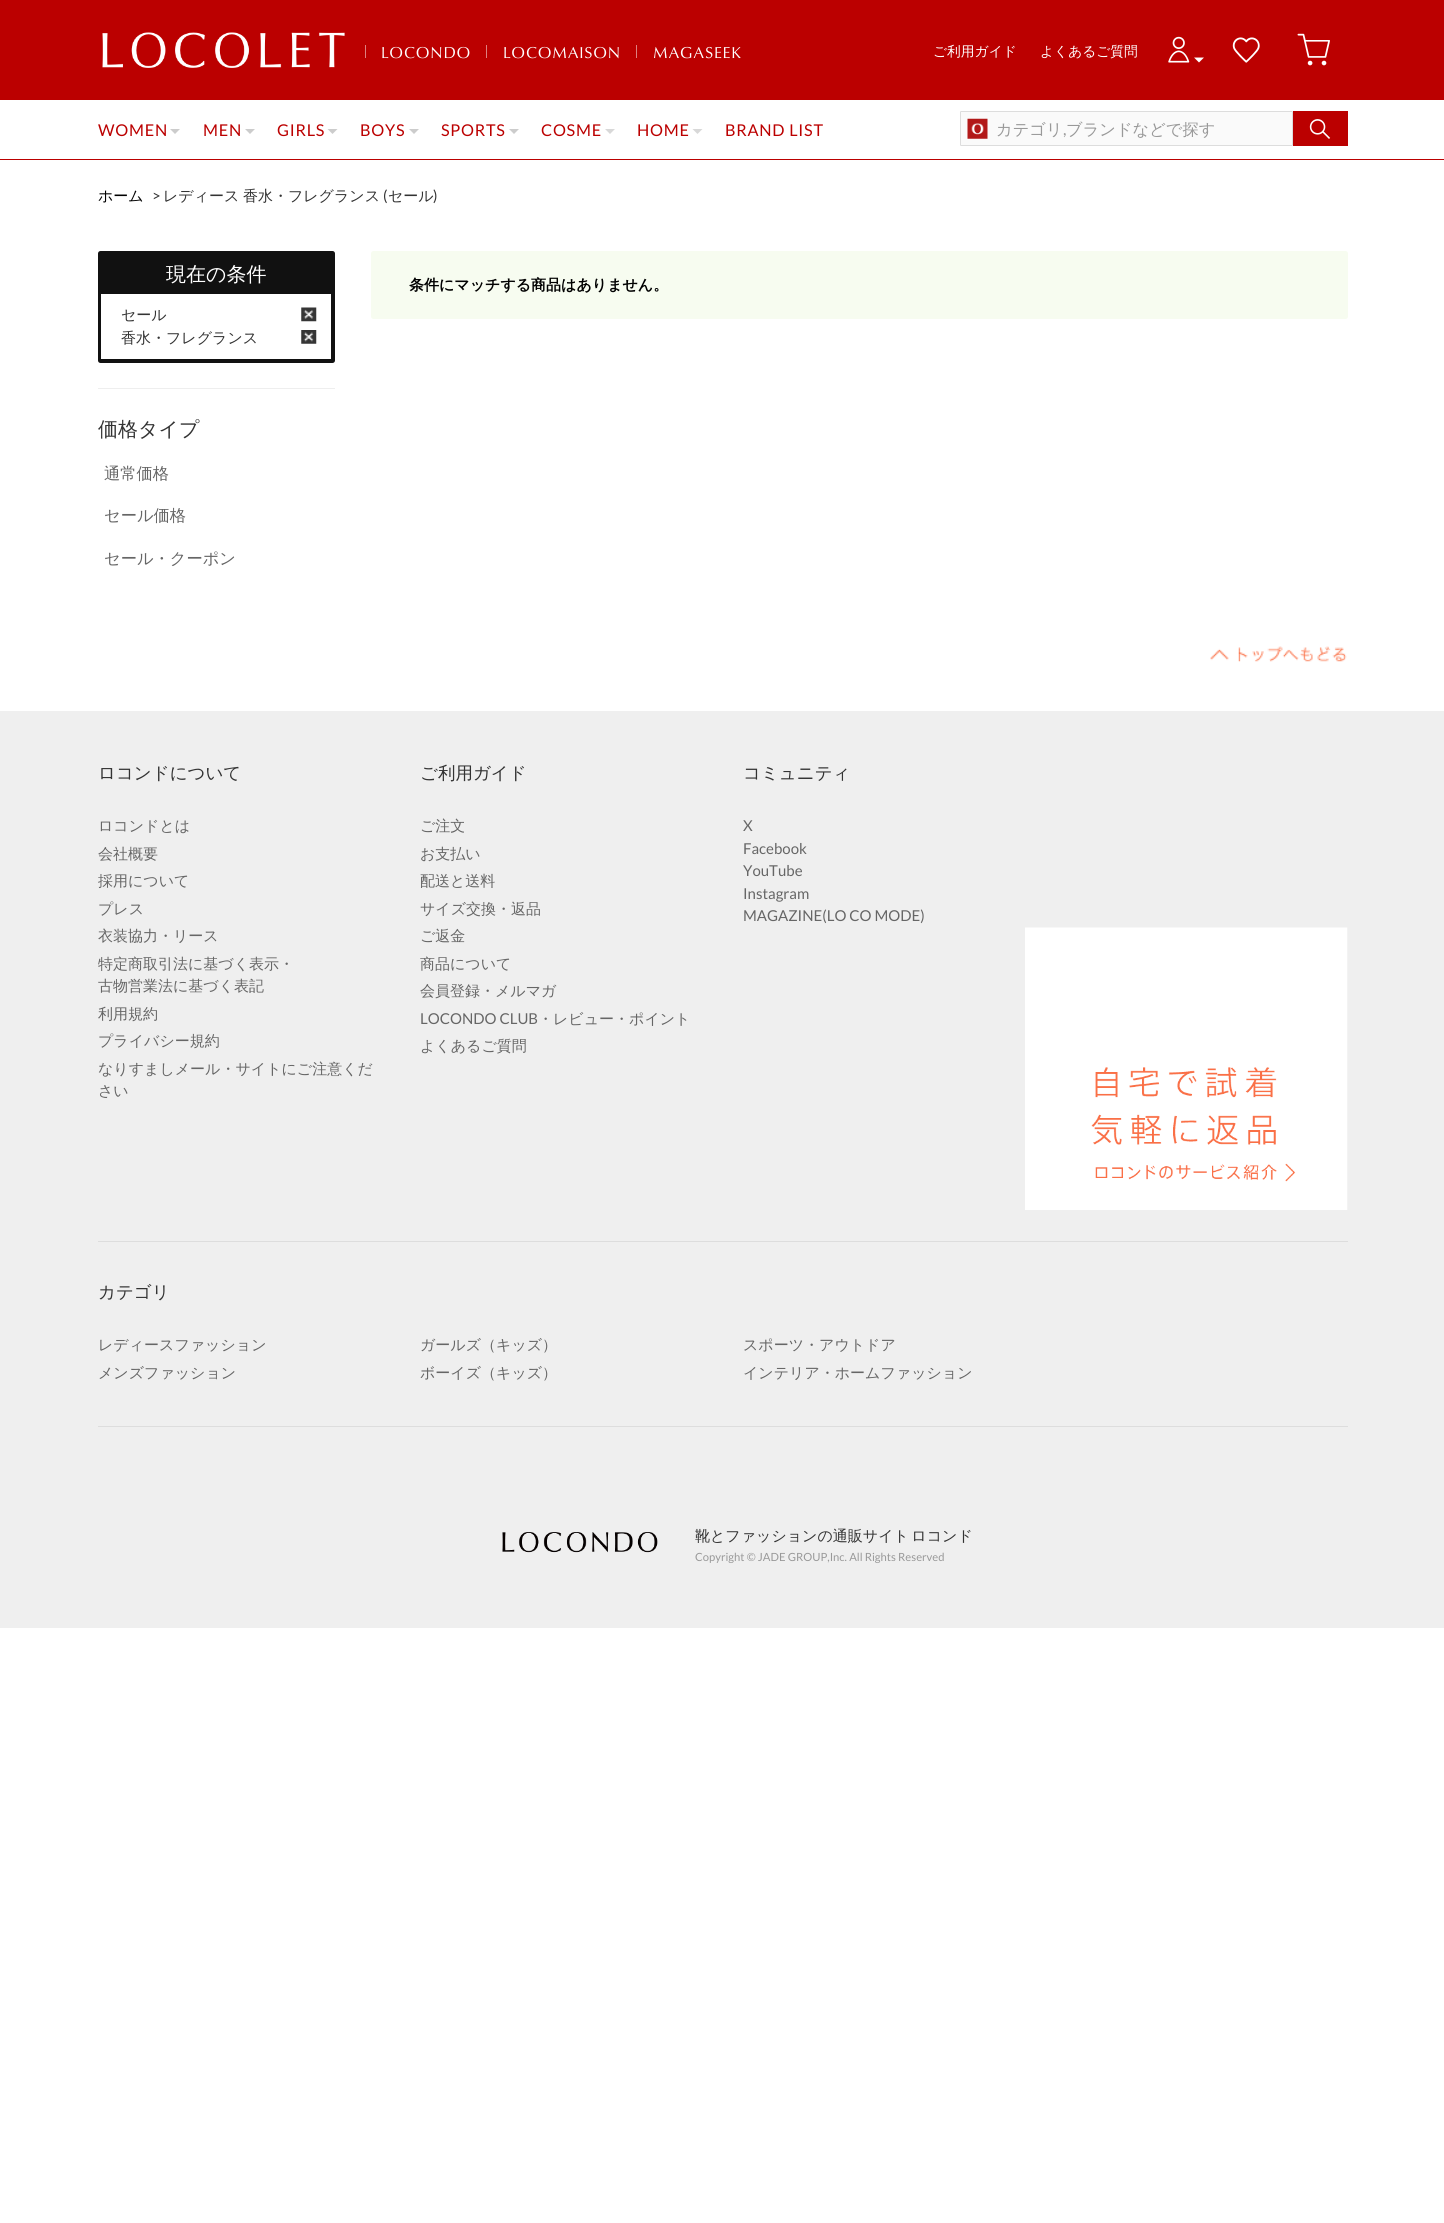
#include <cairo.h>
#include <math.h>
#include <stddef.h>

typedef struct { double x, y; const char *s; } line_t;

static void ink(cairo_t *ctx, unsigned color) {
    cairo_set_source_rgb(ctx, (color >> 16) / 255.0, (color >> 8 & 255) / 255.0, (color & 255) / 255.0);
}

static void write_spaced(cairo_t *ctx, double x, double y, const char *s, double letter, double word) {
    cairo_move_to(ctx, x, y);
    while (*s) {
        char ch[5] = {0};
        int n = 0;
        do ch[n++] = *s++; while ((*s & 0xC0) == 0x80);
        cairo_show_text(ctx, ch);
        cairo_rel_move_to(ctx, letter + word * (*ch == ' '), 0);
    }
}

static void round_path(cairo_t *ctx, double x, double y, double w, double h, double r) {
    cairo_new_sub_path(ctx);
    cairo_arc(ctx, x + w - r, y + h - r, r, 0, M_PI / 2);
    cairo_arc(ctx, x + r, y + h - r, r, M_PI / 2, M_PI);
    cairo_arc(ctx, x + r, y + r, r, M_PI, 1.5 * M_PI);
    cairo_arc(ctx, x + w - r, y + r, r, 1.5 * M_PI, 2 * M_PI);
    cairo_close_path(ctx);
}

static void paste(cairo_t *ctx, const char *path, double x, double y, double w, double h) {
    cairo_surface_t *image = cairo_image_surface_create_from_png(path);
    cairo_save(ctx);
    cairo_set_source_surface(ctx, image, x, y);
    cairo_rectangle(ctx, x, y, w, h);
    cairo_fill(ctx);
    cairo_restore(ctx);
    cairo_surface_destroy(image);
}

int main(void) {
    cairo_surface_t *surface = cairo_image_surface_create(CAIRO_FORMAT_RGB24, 1444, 2223);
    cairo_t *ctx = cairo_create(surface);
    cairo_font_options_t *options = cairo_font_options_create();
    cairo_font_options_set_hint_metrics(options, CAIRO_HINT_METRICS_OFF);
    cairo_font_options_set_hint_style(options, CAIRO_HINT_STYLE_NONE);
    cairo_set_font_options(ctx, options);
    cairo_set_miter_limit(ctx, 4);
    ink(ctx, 0xFFFFFF);
    cairo_paint(ctx);
    ink(ctx, 0xBB0000);
    cairo_rectangle(ctx, 0, 0, 1444, 100);
    cairo_fill(ctx);
    paste(ctx, "media/1.png", 102, 32, 243, 36);
    ink(ctx, 0xDD8080);
    cairo_rectangle(ctx, 365, 45, 1, 13);
    cairo_fill(ctx);
    cairo_select_font_face(ctx, "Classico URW", CAIRO_FONT_SLANT_NORMAL, CAIRO_FONT_WEIGHT_NORMAL);
    cairo_set_font_size(ctx, 16.25);
    ink(ctx, 0xFFFFFF);
    write_spaced(ctx, 381, 58, "LOCONDO", 0.75, 0);
    ink(ctx, 0xDD8080);
    cairo_rectangle(ctx, 486, 45, 1, 13);
    cairo_fill(ctx);
    ink(ctx, 0xFFFFFF);
    write_spaced(ctx, 503, 58, "LOCOMAISON", 0.75, 0);
    ink(ctx, 0xDD8080);
    cairo_rectangle(ctx, 636, 45, 1, 13);
    cairo_fill(ctx);
    ink(ctx, 0xFFFFFF);
    write_spaced(ctx, 653, 58, "MAGASEEK", 0.75, 0);
    cairo_select_font_face(ctx, "WenQuanYi Zen Hei Medium", CAIRO_FONT_SLANT_NORMAL, CAIRO_FONT_WEIGHT_NORMAL);
    cairo_set_font_size(ctx, 13.75);
    cairo_move_to(ctx, 933, 56);
    cairo_show_text(ctx, "ご利用ガイド");
    cairo_move_to(ctx, 1040, 56);
    cairo_show_text(ctx, "よくあるご質問");
    paste(ctx, "media/2.png", 1168, 36, 22, 27);
    cairo_new_path(ctx);
    cairo_move_to(ctx, 1194, 57.5);
    cairo_line_to(ctx, 1204, 57.5);
    cairo_line_to(ctx, 1199, 62.5);
    cairo_close_path(ctx);
    cairo_fill(ctx);
    paste(ctx, "media/3.png", 1232, 37, 28, 26);
    paste(ctx, "media/4.png", 1297, 33, 33, 33);
    ink(ctx, 0xBB0000);
    cairo_rectangle(ctx, 0, 159, 1444, 1);
    cairo_fill(ctx);
    cairo_select_font_face(ctx, "Lato", CAIRO_FONT_SLANT_NORMAL, CAIRO_FONT_WEIGHT_NORMAL);
    cairo_set_font_size(ctx, 16.25);
    write_spaced(ctx, 98, 136, "WOMEN", 0.75, 0);
    ink(ctx, 0xCCCCCC);
    cairo_new_path(ctx);
    cairo_move_to(ctx, 170, 129);
    cairo_line_to(ctx, 180, 129);
    cairo_line_to(ctx, 175, 134);
    cairo_close_path(ctx);
    cairo_fill(ctx);
    ink(ctx, 0xBB0000);
    write_spaced(ctx, 203, 136, "MEN", 0.75, 0);
    ink(ctx, 0xCCCCCC);
    cairo_new_path(ctx);
    cairo_move_to(ctx, 245, 129);
    cairo_line_to(ctx, 255, 129);
    cairo_line_to(ctx, 250, 134);
    cairo_close_path(ctx);
    cairo_fill(ctx);
    ink(ctx, 0xBB0000);
    write_spaced(ctx, 277, 136, "GIRLS", 0.75, 0);
    ink(ctx, 0xCCCCCC);
    cairo_new_path(ctx);
    cairo_move_to(ctx, 327.5, 129);
    cairo_line_to(ctx, 337.5, 129);
    cairo_line_to(ctx, 332.5, 134);
    cairo_close_path(ctx);
    cairo_fill(ctx);
    ink(ctx, 0xBB0000);
    write_spaced(ctx, 360, 136, "BOYS", 0.75, 0);
    ink(ctx, 0xCCCCCC);
    cairo_new_path(ctx);
    cairo_move_to(ctx, 409, 129);
    cairo_line_to(ctx, 419, 129);
    cairo_line_to(ctx, 414, 134);
    cairo_close_path(ctx);
    cairo_fill(ctx);
    ink(ctx, 0xBB0000);
    write_spaced(ctx, 441, 136, "SPORTS", 0.75, 0);
    ink(ctx, 0xCCCCCC);
    cairo_new_path(ctx);
    cairo_move_to(ctx, 509, 129);
    cairo_line_to(ctx, 519, 129);
    cairo_line_to(ctx, 514, 134);
    cairo_close_path(ctx);
    cairo_fill(ctx);
    ink(ctx, 0xBB0000);
    write_spaced(ctx, 541, 136, "COSME", 0.75, 0);
    ink(ctx, 0xD8D8D8);
    cairo_new_path(ctx);
    cairo_move_to(ctx, 605, 129);
    cairo_line_to(ctx, 615, 129);
    cairo_line_to(ctx, 610, 134);
    cairo_close_path(ctx);
    cairo_fill(ctx);
    ink(ctx, 0xBB0000);
    write_spaced(ctx, 637, 136, "HOME", 0.75, 0);
    ink(ctx, 0xD8D8D8);
    cairo_new_path(ctx);
    cairo_move_to(ctx, 692.5, 129);
    cairo_line_to(ctx, 702.5, 129);
    cairo_line_to(ctx, 697.5, 134);
    cairo_close_path(ctx);
    cairo_fill(ctx);
    ink(ctx, 0xBB0000);
    write_spaced(ctx, 725, 136, "BRAND LIST", 0.75, 0);
    ink(ctx, 0xFAFAFA);
    round_path(ctx, 960.5, 111.5, 332, 34, 0.5);
    cairo_fill_preserve(ctx);
    ink(ctx, 0xDDDDDD);
    cairo_set_line_width(ctx, 1);
    cairo_stroke(ctx);
    paste(ctx, "media/5.png", 967, 118, 21, 21);
    cairo_select_font_face(ctx, "WenQuanYi Zen Hei Medium", CAIRO_FONT_SLANT_NORMAL, CAIRO_FONT_WEIGHT_NORMAL);
    ink(ctx, 0x999999);
    cairo_move_to(ctx, 996, 135);
    cairo_show_text(ctx, "カテゴリ");
    cairo_select_font_face(ctx, "Lato", CAIRO_FONT_SLANT_NORMAL, CAIRO_FONT_WEIGHT_NORMAL);
    cairo_move_to(ctx, 1063, 135);
    cairo_show_text(ctx, ",");
    cairo_select_font_face(ctx, "WenQuanYi Zen Hei Medium", CAIRO_FONT_SLANT_NORMAL, CAIRO_FONT_WEIGHT_NORMAL);
    cairo_move_to(ctx, 1066, 135);
    cairo_show_text(ctx, "ブランドなどで探す");
    ink(ctx, 0xBB0000);
    cairo_rectangle(ctx, 1293, 111, 55, 35);
    cairo_fill(ctx);
    paste(ctx, "media/6.png", 1309, 119, 22, 20);
    cairo_set_font_size(ctx, 15);
    ink(ctx, 0x000000);
    cairo_move_to(ctx, 98, 201);
    cairo_show_text(ctx, "ホーム");
    cairo_select_font_face(ctx, "Lato", CAIRO_FONT_SLANT_NORMAL, CAIRO_FONT_WEIGHT_NORMAL);
    ink(ctx, 0x333333);
    cairo_move_to(ctx, 152, 201);
    cairo_show_text(ctx, ">");
    cairo_select_font_face(ctx, "WenQuanYi Zen Hei Medium", CAIRO_FONT_SLANT_NORMAL, CAIRO_FONT_WEIGHT_NORMAL);
    write_spaced(ctx, 163, 201, "レディース 香水・フレグランス", 0, -1);
    cairo_select_font_face(ctx, "Lato", CAIRO_FONT_SLANT_NORMAL, CAIRO_FONT_WEIGHT_NORMAL);
    cairo_move_to(ctx, 383, 201);
    cairo_show_text(ctx, "(");
    cairo_select_font_face(ctx, "WenQuanYi Zen Hei Medium", CAIRO_FONT_SLANT_NORMAL, CAIRO_FONT_WEIGHT_NORMAL);
    cairo_move_to(ctx, 388, 201);
    cairo_show_text(ctx, "セール");
    cairo_select_font_face(ctx, "Lato", CAIRO_FONT_SLANT_NORMAL, CAIRO_FONT_WEIGHT_NORMAL);
    cairo_move_to(ctx, 433, 201);
    cairo_show_text(ctx, ")");
    ink(ctx, 0x111111);
    round_path(ctx, 98, 251, 237, 112, 2.5);
    cairo_fill(ctx);
    cairo_select_font_face(ctx, "WenQuanYi Zen Hei Medium", CAIRO_FONT_SLANT_NORMAL, CAIRO_FONT_WEIGHT_NORMAL);
    cairo_set_font_size(ctx, 20);
    ink(ctx, 0xFFFFFF);
    cairo_move_to(ctx, 166, 281);
    cairo_show_text(ctx, "現在の条件");
    cairo_rectangle(ctx, 101, 294, 230, 65);
    cairo_fill(ctx);
    cairo_set_font_size(ctx, 15);
    ink(ctx, 0x333333);
    cairo_move_to(ctx, 121, 320);
    cairo_show_text(ctx, "セール");
    paste(ctx, "media/7.png", 301, 307, 16, 15);
    cairo_move_to(ctx, 121, 343);
    cairo_show_text(ctx, "香水・フレグランス");
    paste(ctx, "media/8.png", 301, 330, 16, 14);
    ink(ctx, 0xEEEEEE);
    cairo_rectangle(ctx, 98, 388, 237, 1);
    cairo_fill(ctx);
    cairo_set_font_size(ctx, 20);
    ink(ctx, 0x333333);
    cairo_move_to(ctx, 98, 436);
    cairo_show_text(ctx, "価格タイプ");
    cairo_set_font_size(ctx, 16.25);
    ink(ctx, 0x666666);
    {
        static const line_t items[] = {
            {104, 479, "通常価格"},
            {104, 521, "セール価格"},
            {104, 564, "セール・クーポン"},
        };
        for (size_t i = 0; i < sizeof items / sizeof *items; i++) {
            cairo_move_to(ctx, items[i].x, items[i].y);
            cairo_show_text(ctx, items[i].s);
        }
    }
    ink(ctx, 0xF7FCF0);
    round_path(ctx, 371, 251, 977, 68, 2.5);
    cairo_fill(ctx);
    cairo_select_font_face(ctx, "WenQuanYi Zen Hei", CAIRO_FONT_SLANT_NORMAL, CAIRO_FONT_WEIGHT_BOLD);
    cairo_set_font_size(ctx, 15);
    ink(ctx, 0x000000);
    cairo_move_to(ctx, 409, 290);
    cairo_show_text(ctx, "条件にマッチする商品はありません。");
    paste(ctx, "media/9.png", 1210, 646, 137, 16);
    ink(ctx, 0xEFEFEF);
    cairo_rectangle(ctx, 0, 711, 1444, 917);
    cairo_fill(ctx);
    ink(ctx, 0xDDDDDD);
    cairo_rectangle(ctx, 98, 1241, 1250, 1);
    cairo_fill(ctx);
    cairo_select_font_face(ctx, "WenQuanYi Zen Hei Medium", CAIRO_FONT_SLANT_NORMAL, CAIRO_FONT_WEIGHT_NORMAL);
    cairo_set_font_size(ctx, 17.5);
    ink(ctx, 0x333333);
    cairo_move_to(ctx, 98, 779);
    cairo_show_text(ctx, "ロコンドについて");
    cairo_set_font_size(ctx, 15);
    ink(ctx, 0x666666);
    cairo_move_to(ctx, 98, 831);
    cairo_show_text(ctx, "ロコンドとは");
    cairo_move_to(ctx, 98, 859);
    cairo_show_text(ctx, "会社概要");
    cairo_save(ctx);
    cairo_rectangle(ctx, 98, 761, 1250, 480);
    cairo_clip(ctx);
    cairo_move_to(ctx, 98, 886);
    cairo_show_text(ctx, "採用について");
    cairo_restore(ctx);
    cairo_move_to(ctx, 98, 914);
    cairo_show_text(ctx, "プレス");
    cairo_move_to(ctx, 98, 941);
    cairo_show_text(ctx, "衣装協力・リース");
    cairo_save(ctx);
    cairo_rectangle(ctx, 98, 761, 1250, 480);
    cairo_clip(ctx);
    cairo_move_to(ctx, 98, 969);
    cairo_show_text(ctx, "特定商取引法に基づく表示・");
    cairo_restore(ctx);
    {
        static const line_t items[] = {
            {98, 991, "古物営業法に基づく表記"},
            {98, 1019, "利用規約"},
            {98, 1046, "プライバシー規約"},
            {98, 1074, "なりすましメール・サイトにご注意くだ"},
            {98, 1096, "さい"},
        };
        for (size_t i = 0; i < sizeof items / sizeof *items; i++) {
            cairo_move_to(ctx, items[i].x, items[i].y);
            cairo_show_text(ctx, items[i].s);
        }
    }
    cairo_set_font_size(ctx, 17.5);
    ink(ctx, 0x333333);
    cairo_move_to(ctx, 420, 779);
    cairo_show_text(ctx, "ご利用ガイド");
    cairo_set_font_size(ctx, 15);
    ink(ctx, 0x666666);
    {
        static const line_t items[] = {
            {420, 831, "ご注文"},
            {420, 859, "お支払い"},
            {420, 886, "配送と送料"},
            {420, 914, "サイズ交換・返品"},
            {420, 941, "ご返金"},
            {420, 969, "商品について"},
            {420, 996, "会員登録・メルマガ"},
        };
        for (size_t i = 0; i < sizeof items / sizeof *items; i++) {
            cairo_move_to(ctx, items[i].x, items[i].y);
            cairo_show_text(ctx, items[i].s);
        }
    }
    cairo_select_font_face(ctx, "Lato", CAIRO_FONT_SLANT_NORMAL, CAIRO_FONT_WEIGHT_NORMAL);
    cairo_move_to(ctx, 420, 1024);
    cairo_show_text(ctx, "LOCONDO CLUB");
    cairo_select_font_face(ctx, "WenQuanYi Zen Hei Medium", CAIRO_FONT_SLANT_NORMAL, CAIRO_FONT_WEIGHT_NORMAL);
    cairo_move_to(ctx, 538, 1024);
    cairo_show_text(ctx, "・レビュー・ポイント");
    cairo_move_to(ctx, 420, 1051);
    cairo_show_text(ctx, "よくあるご質問");
    cairo_set_font_size(ctx, 17.5);
    ink(ctx, 0x333333);
    cairo_move_to(ctx, 743, 779);
    cairo_show_text(ctx, "コミュニティ");
    cairo_select_font_face(ctx, "Lato", CAIRO_FONT_SLANT_NORMAL, CAIRO_FONT_WEIGHT_NORMAL);
    cairo_set_font_size(ctx, 15);
    ink(ctx, 0x666666);
    {
        static const line_t items[] = {
            {743, 831, "X"},
            {743, 854, "Facebook"},
            {743, 876, "YouTube"},
            {743, 899, "Instagram"},
            {743, 921, "MAGAZINE(LO CO MODE)"},
        };
        for (size_t i = 0; i < sizeof items / sizeof *items; i++) {
            cairo_move_to(ctx, items[i].x, items[i].y);
            cairo_show_text(ctx, items[i].s);
        }
    }
    paste(ctx, "media/10.png", 1025, 927, 323, 283);
    ink(ctx, 0xDDDDDD);
    cairo_rectangle(ctx, 98, 1426, 1250, 1);
    cairo_fill(ctx);
    cairo_select_font_face(ctx, "WenQuanYi Zen Hei Medium", CAIRO_FONT_SLANT_NORMAL, CAIRO_FONT_WEIGHT_NORMAL);
    cairo_set_font_size(ctx, 17.5);
    ink(ctx, 0x333333);
    cairo_move_to(ctx, 98, 1298);
    cairo_show_text(ctx, "カテゴリ");
    cairo_set_font_size(ctx, 15);
    ink(ctx, 0x666666);
    {
        static const line_t items[] = {
            {98, 1350, "レディースファッション"},
            {98, 1378, "メンズファッション"},
            {420, 1350, "ガールズ（キッズ）"},
            {420, 1378, "ボーイズ（キッズ）"},
            {743, 1350, "スポーツ・アウトドア"},
            {743, 1378, "インテリア・ホームファッション"},
        };
        for (size_t i = 0; i < sizeof items / sizeof *items; i++) {
            cairo_move_to(ctx, items[i].x, items[i].y);
            cairo_show_text(ctx, items[i].s);
        }
    }
    paste(ctx, "media/11.png", 502, 1532, 156, 21);
    ink(ctx, 0x333333);
    write_spaced(ctx, 695, 1541, "靴とファッションの通販サイト ロコンド", 0, -2);
    cairo_select_font_face(ctx, "Lato", CAIRO_FONT_SLANT_NORMAL, CAIRO_FONT_WEIGHT_NORMAL);
    cairo_set_font_size(ctx, 11.25);
    ink(ctx, 0x999999);
    cairo_move_to(ctx, 695, 1561);
    cairo_show_text(ctx, "Copyright © JADE GROUP,Inc. All Rights Reserved");
    cairo_surface_write_to_png(surface, "image.png");
    cairo_font_options_destroy(options);
    cairo_destroy(ctx);
    cairo_surface_destroy(surface);
    return 0;
}
